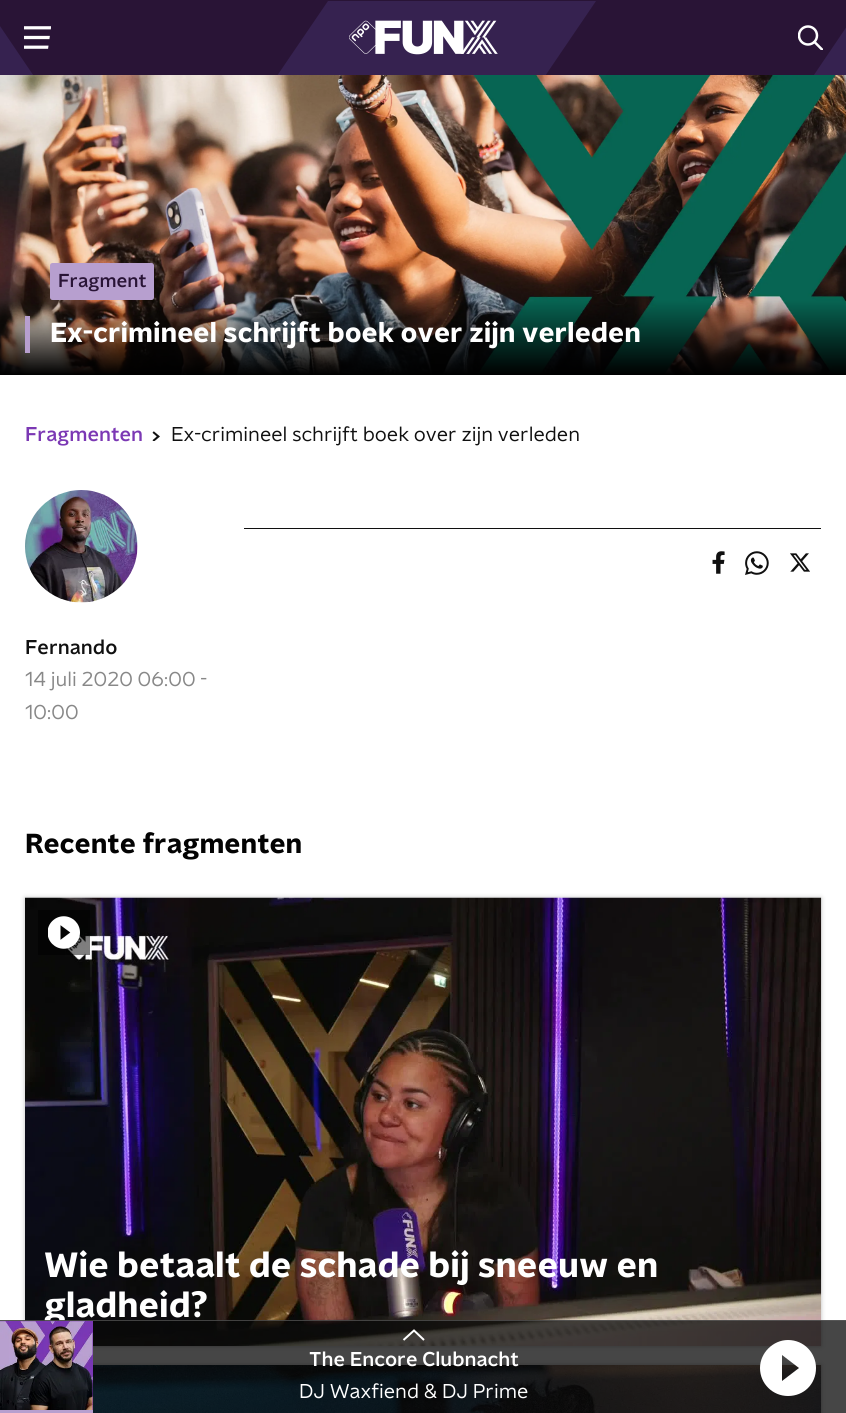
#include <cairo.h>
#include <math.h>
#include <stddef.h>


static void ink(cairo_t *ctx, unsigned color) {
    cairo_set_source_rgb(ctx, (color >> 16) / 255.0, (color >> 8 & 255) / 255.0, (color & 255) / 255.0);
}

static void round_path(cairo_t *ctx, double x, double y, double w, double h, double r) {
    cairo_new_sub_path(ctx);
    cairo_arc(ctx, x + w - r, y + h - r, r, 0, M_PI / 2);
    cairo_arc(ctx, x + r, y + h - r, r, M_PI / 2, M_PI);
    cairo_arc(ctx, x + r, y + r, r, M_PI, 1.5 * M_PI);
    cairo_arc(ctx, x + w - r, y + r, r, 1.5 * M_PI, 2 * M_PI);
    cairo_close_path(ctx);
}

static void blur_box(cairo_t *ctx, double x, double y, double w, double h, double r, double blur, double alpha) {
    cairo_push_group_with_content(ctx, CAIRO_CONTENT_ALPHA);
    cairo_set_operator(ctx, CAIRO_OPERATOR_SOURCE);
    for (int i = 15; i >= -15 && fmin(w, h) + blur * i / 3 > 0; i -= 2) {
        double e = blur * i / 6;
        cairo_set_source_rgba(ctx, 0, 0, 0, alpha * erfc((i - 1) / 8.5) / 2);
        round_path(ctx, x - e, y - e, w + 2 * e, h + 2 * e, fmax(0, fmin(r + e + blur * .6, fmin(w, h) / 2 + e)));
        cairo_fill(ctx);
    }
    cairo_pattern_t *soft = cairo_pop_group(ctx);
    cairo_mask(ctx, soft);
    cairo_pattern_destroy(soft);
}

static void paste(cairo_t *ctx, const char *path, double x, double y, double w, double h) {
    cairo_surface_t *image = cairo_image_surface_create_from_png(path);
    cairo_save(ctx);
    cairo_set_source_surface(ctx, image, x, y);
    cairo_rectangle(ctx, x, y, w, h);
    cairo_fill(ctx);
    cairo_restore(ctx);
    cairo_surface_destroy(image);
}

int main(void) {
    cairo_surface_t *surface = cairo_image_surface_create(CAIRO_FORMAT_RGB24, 846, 1413);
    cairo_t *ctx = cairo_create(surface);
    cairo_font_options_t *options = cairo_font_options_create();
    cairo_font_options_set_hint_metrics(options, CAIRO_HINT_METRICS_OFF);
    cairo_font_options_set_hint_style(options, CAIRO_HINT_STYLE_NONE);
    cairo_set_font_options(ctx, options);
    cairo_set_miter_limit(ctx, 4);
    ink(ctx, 0xFFFFFF);
    cairo_paint(ctx);
    ink(ctx, 0x291436);
    cairo_rectangle(ctx, 0, 0, 846, 75);
    cairo_fill(ctx);
    cairo_save(ctx);
    cairo_rectangle(ctx, 0, 0, 846, 75);
    cairo_clip(ctx);
    ink(ctx, 0x362250);
    cairo_new_path(ctx);
    cairo_move_to(ctx, 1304, 539);
    cairo_line_to(ctx, 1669, 1);
    cairo_line_to(ctx, 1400, 1);
    cairo_line_to(ctx, 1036, 539);
    cairo_close_path(ctx);
    cairo_move_to(ctx, 768, 539);
    cairo_line_to(ctx, 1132, 1);
    cairo_line_to(ctx, 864, 1);
    cairo_line_to(ctx, 500, 539);
    cairo_close_path(ctx);
    cairo_move_to(ctx, -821, 1);
    cairo_line_to(ctx, -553, 1);
    cairo_line_to(ctx, -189, 539);
    cairo_line_to(ctx, -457, 539);
    cairo_close_path(ctx);
    cairo_move_to(ctx, 232, 539);
    cairo_line_to(ctx, 289, 453);
    cairo_line_to(ctx, 596, 1);
    cairo_line_to(ctx, 328, 1);
    cairo_line_to(ctx, 155, 255);
    cairo_line_to(ctx, -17, 1);
    cairo_line_to(ctx, -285, 1);
    cairo_line_to(ctx, 21, 453);
    cairo_line_to(ctx, -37, 539);
    cairo_close_path(ctx);
    cairo_fill(ctx);
    cairo_restore(ctx);
    paste(ctx, "media/1.png", 24, 26, 27, 23);
    paste(ctx, "media/2.png", 349, 20, 149, 35);
    cairo_save(ctx);
    cairo_rectangle(ctx, 798, 25, 25, 25);
    cairo_clip(ctx);
    cairo_arc(ctx, 808, 35.5, 9, 0, 2 * M_PI);
    ink(ctx, 0xFFFFFF);
    cairo_set_line_width(ctx, 2.5);
    cairo_stroke(ctx);
    cairo_new_path(ctx);
    cairo_move_to(ctx, 814.5, 42);
    cairo_line_to(ctx, 822, 49.5);
    cairo_set_line_cap(ctx, CAIRO_LINE_CAP_SQUARE);
    cairo_stroke(ctx);
    cairo_restore(ctx);
    paste(ctx, "media/3.png", 0, 75, 846, 300);
    ink(ctx, 0xB79FCF);
    round_path(ctx, 50, 263, 104, 37, 2.5);
    cairo_fill(ctx);
    cairo_select_font_face(ctx, "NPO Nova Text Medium", CAIRO_FONT_SLANT_NORMAL, CAIRO_FONT_WEIGHT_NORMAL);
    cairo_set_font_size(ctx, 18.75);
    ink(ctx, 0x291436);
    cairo_move_to(ctx, 58, 287);
    cairo_show_text(ctx, "Fragment");
    ink(ctx, 0xB79FCF);
    cairo_rectangle(ctx, 25, 316, 5, 37);
    cairo_fill(ctx);
    cairo_select_font_face(ctx, "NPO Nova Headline", CAIRO_FONT_SLANT_NORMAL, CAIRO_FONT_WEIGHT_BOLD);
    cairo_set_font_size(ctx, 27.5);
    ink(ctx, 0xFFFFFF);
    cairo_move_to(ctx, 50, 342);
    cairo_show_text(ctx, "Ex-crimineel schrijft boek over zijn verleden");
    cairo_select_font_face(ctx, "NPO Nova Text Medium", CAIRO_FONT_SLANT_NORMAL, CAIRO_FONT_WEIGHT_NORMAL);
    cairo_set_font_size(ctx, 20);
    ink(ctx, 0x7B38B4);
    cairo_move_to(ctx, 25, 441);
    cairo_show_text(ctx, "Fragmenten");
    paste(ctx, "media/4.png", 152, 431, 8, 10);
    cairo_select_font_face(ctx, "NPO Nova Text", CAIRO_FONT_SLANT_NORMAL, CAIRO_FONT_WEIGHT_NORMAL);
    ink(ctx, 0x101010);
    cairo_move_to(ctx, 171, 441);
    cairo_show_text(ctx, "Ex-crimineel schrijft boek over zijn verleden");
    cairo_rectangle(ctx, 244, 528, 577, 1);
    cairo_fill(ctx);
    paste(ctx, "media/5.png", 712, 551, 13, 23);
    paste(ctx, "media/6.png", 745, 551, 24, 24);
    paste(ctx, "media/7.png", 790, 553, 20, 19);
    paste(ctx, "media/8.png", 25, 490, 113, 113);
    cairo_select_font_face(ctx, "NPO Nova Text Medium", CAIRO_FONT_SLANT_NORMAL, CAIRO_FONT_WEIGHT_NORMAL);
    cairo_move_to(ctx, 25, 654);
    cairo_show_text(ctx, "Fernando");
    cairo_select_font_face(ctx, "NPO Nova Text", CAIRO_FONT_SLANT_NORMAL, CAIRO_FONT_WEIGHT_NORMAL);
    ink(ctx, 0x888888);
    cairo_move_to(ctx, 25, 686);
    cairo_show_text(ctx, "14 juli 2020 06:00 -");
    cairo_move_to(ctx, 25, 719);
    cairo_show_text(ctx, "10:00");
    cairo_select_font_face(ctx, "NPO Nova Headline", CAIRO_FONT_SLANT_NORMAL, CAIRO_FONT_WEIGHT_BOLD);
    cairo_set_font_size(ctx, 27.5);
    ink(ctx, 0x030303);
    cairo_move_to(ctx, 25, 853);
    cairo_show_text(ctx, "Recente fragmenten");
    ink(ctx, 0x000000);
    blur_box(ctx, 25, 898, 796, 448, 0, 2.5, 0.25);
    paste(ctx, "media/9.png", 25, 897, 797, 450);
    cairo_set_source_rgba(ctx, 0, 0, 0, 0.5);
    cairo_rectangle(ctx, 38, 910, 52, 45);
    cairo_fill(ctx);
    paste(ctx, "media/10.png", 48, 916, 32, 33);
    cairo_set_font_size(ctx, 35);
    ink(ctx, 0xFFFFFF);
    cairo_move_to(ctx, 44, 1277);
    cairo_show_text(ctx, "Wie betaalt de schade bij sneeuw en");
    cairo_move_to(ctx, 44, 1317);
    cairo_show_text(ctx, "gladheid?");
    ink(ctx, 0x000000);
    blur_box(ctx, 25, 1365, 796, 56, 0, 2.5, 0.25);
    paste(ctx, "media/11.png", 93, 1365, 729, 48);
    cairo_set_source_rgba(ctx, 0.035, 0.035, 0.035, 0.75);
    cairo_rectangle(ctx, 0, 1320, 846, 93);
    cairo_fill(ctx);
    cairo_set_source_rgba(ctx, 0.373, 0.373, 0.373, 0.65);
    cairo_rectangle(ctx, 0, 1320, 846, 1);
    cairo_fill(ctx);
    ink(ctx, 0x7B38B4);
    cairo_rectangle(ctx, 0, 1321, 93, 89);
    cairo_fill(ctx);
    paste(ctx, "media/12.png", 0, 1321, 93, 89);
    ink(ctx, 0xB79FCF);
    cairo_rectangle(ctx, 0, 1410, 93, 3);
    cairo_fill(ctx);
    cairo_new_path(ctx);
    cairo_move_to(ctx, 424, 1340);
    cairo_line_to(ctx, 414, 1330.5);
    cairo_line_to(ctx, 403.5, 1340);
    ink(ctx, 0xFFFFFF);
    cairo_stroke(ctx);
    cairo_select_font_face(ctx, "NPO Nova Text Medium", CAIRO_FONT_SLANT_NORMAL, CAIRO_FONT_WEIGHT_NORMAL);
    cairo_set_font_size(ctx, 20);
    cairo_move_to(ctx, 309, 1366);
    cairo_show_text(ctx, "The Encore Clubnacht");
    cairo_select_font_face(ctx, "NPO Nova Text", CAIRO_FONT_SLANT_NORMAL, CAIRO_FONT_WEIGHT_NORMAL);
    cairo_move_to(ctx, 299, 1398);
    cairo_show_text(ctx, "DJ Waxfiend & DJ Prime");
    cairo_new_path(ctx);
    cairo_move_to(ctx, 788, 1340);
    cairo_curve_to(ctx, 773, 1340, 760, 1353, 760, 1368);
    cairo_curve_to(ctx, 760, 1384, 773, 1396, 788, 1396);
    cairo_curve_to(ctx, 804, 1396, 816, 1384, 816, 1368);
    cairo_curve_to(ctx, 816, 1353, 804, 1340, 788, 1340);
    cairo_close_path(ctx);
    cairo_move_to(ctx, 782, 1381);
    cairo_line_to(ctx, 782, 1355);
    cairo_line_to(ctx, 799, 1368);
    cairo_close_path(ctx);
    cairo_fill(ctx);
    cairo_surface_write_to_png(surface, "image.png");
    cairo_font_options_destroy(options);
    cairo_destroy(ctx);
    cairo_surface_destroy(surface);
    return 0;
}
